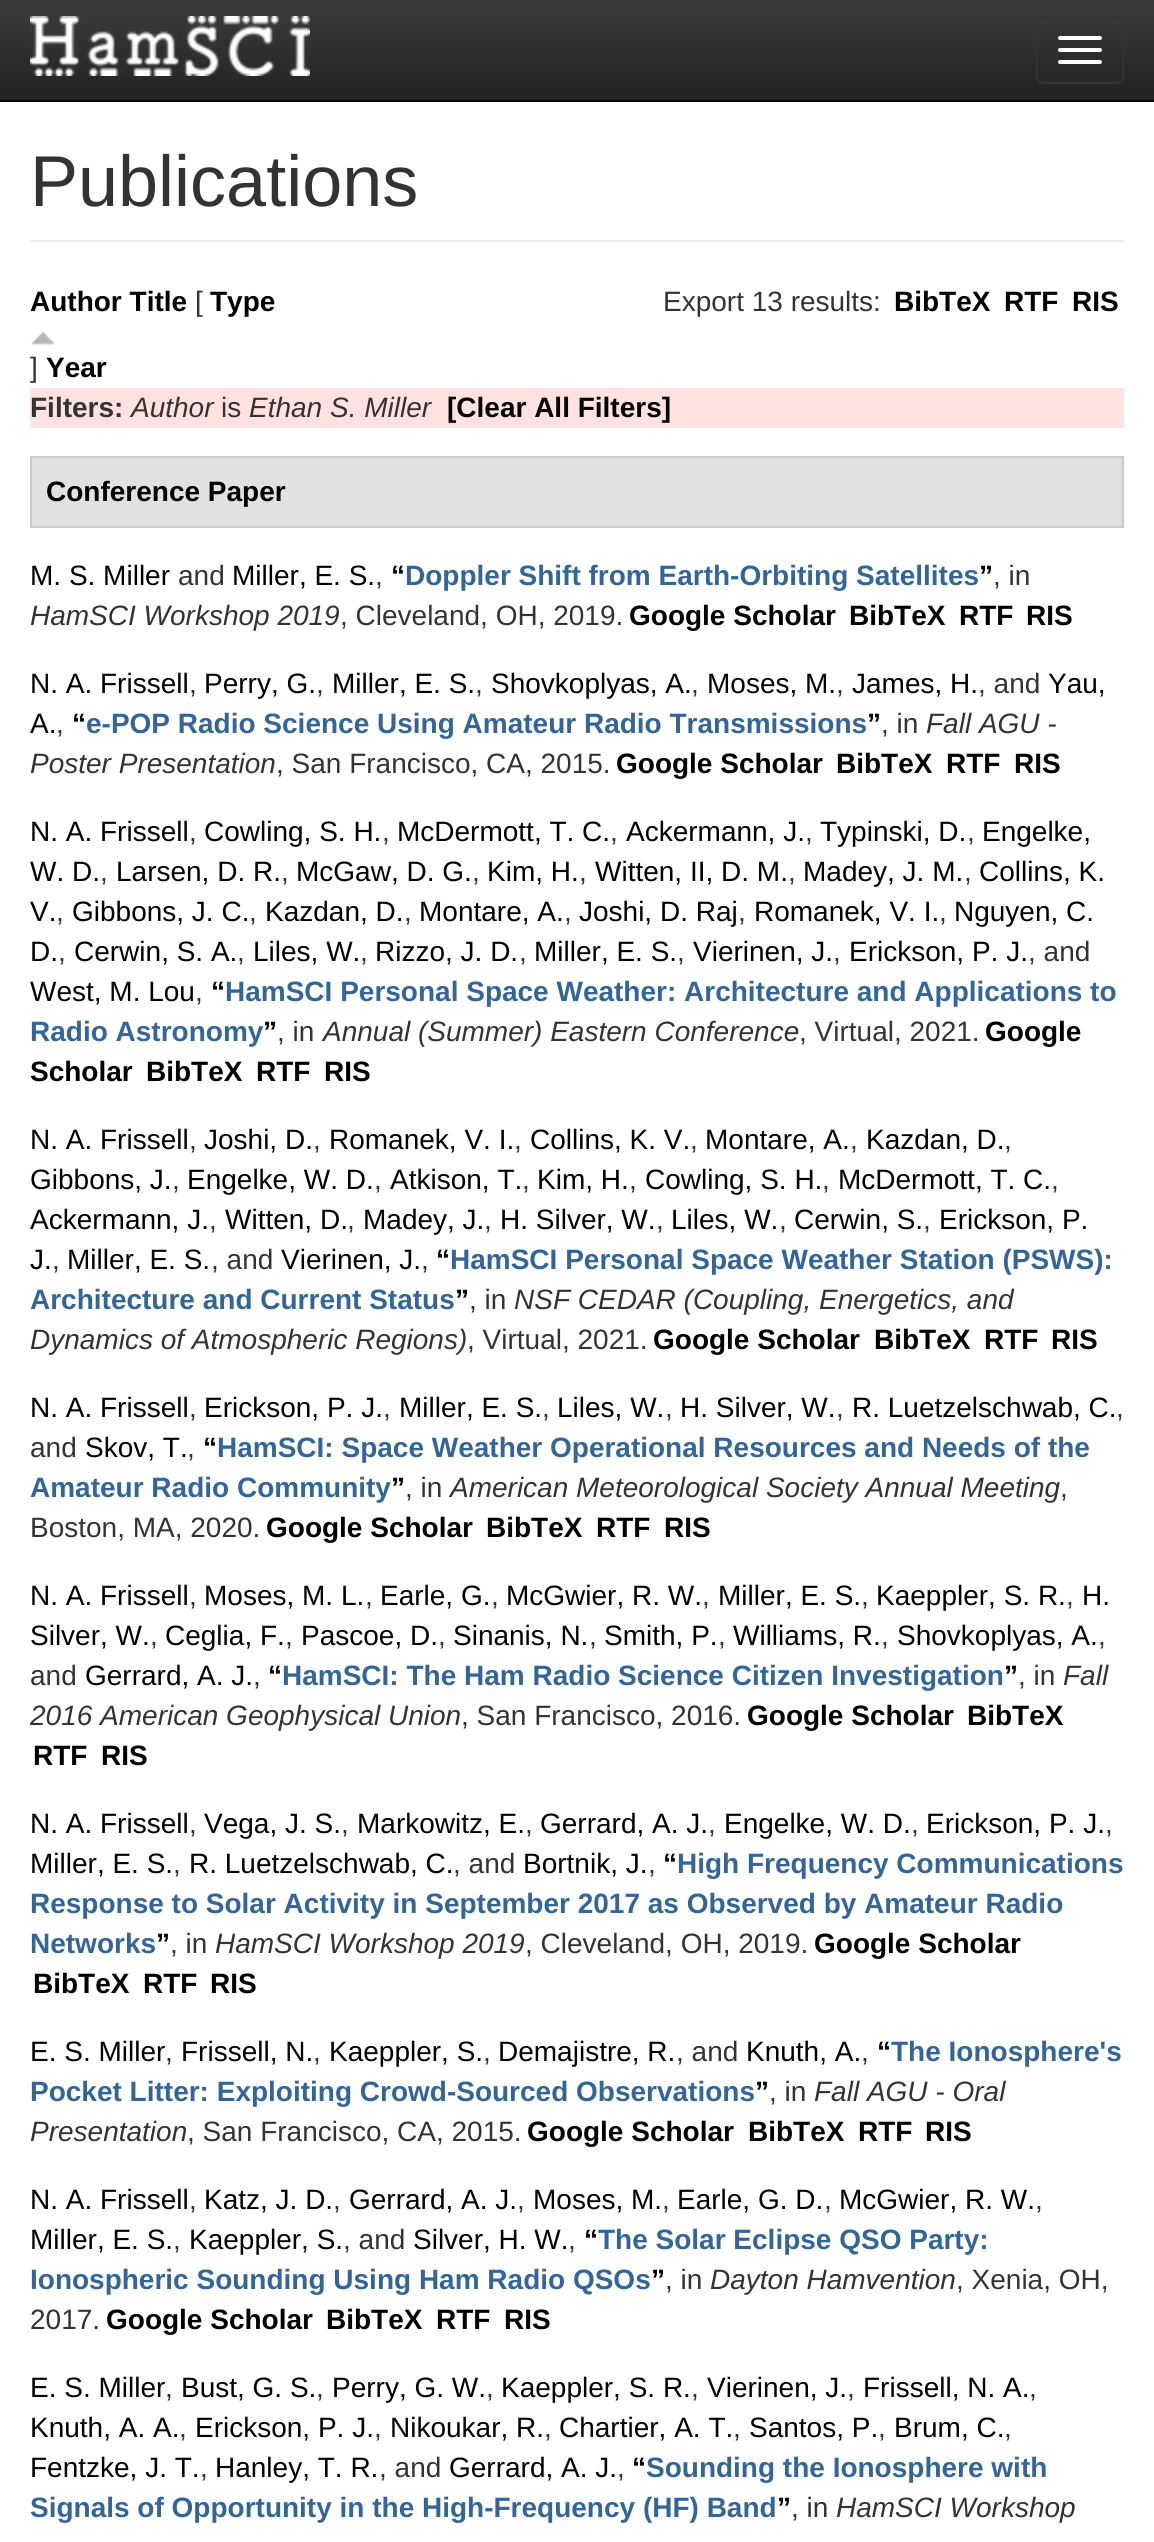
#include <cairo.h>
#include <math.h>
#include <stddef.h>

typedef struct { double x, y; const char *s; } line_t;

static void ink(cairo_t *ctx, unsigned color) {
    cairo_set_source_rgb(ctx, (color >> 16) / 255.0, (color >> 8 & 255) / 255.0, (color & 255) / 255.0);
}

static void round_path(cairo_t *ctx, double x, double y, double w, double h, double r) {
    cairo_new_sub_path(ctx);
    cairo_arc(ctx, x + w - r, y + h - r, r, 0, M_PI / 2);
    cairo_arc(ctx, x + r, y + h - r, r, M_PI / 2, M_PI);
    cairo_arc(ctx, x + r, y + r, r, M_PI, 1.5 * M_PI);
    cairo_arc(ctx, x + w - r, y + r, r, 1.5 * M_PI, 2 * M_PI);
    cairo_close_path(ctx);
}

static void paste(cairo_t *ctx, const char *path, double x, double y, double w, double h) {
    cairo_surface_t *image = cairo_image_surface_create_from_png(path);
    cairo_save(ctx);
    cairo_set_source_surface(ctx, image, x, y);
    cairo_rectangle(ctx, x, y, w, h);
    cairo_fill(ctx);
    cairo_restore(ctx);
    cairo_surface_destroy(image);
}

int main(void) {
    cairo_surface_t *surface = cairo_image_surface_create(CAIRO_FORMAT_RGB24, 1154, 2542);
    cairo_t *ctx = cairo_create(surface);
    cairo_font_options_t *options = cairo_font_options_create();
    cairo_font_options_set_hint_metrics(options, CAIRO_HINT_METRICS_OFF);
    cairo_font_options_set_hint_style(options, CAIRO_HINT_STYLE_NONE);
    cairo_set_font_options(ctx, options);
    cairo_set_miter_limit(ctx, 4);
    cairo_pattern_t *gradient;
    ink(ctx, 0xFFFFFF);
    cairo_paint(ctx);
    gradient = cairo_pattern_create_linear(577, 0, 577, 100);
    cairo_pattern_add_color_stop_rgba(gradient, 0, 0.235, 0.235, 0.235, 1);
    cairo_pattern_add_color_stop_rgba(gradient, 1, 0.133, 0.133, 0.133, 1);
    cairo_set_source(ctx, gradient);
    cairo_pattern_destroy(gradient);
    cairo_rectangle(ctx, 0, 0, 1154, 100);
    cairo_fill(ctx);
    ink(ctx, 0x080808);
    cairo_rectangle(ctx, 0, 100, 1154, 2);
    cairo_fill(ctx);
    paste(ctx, "media/1.png", 30, 16, 280, 60);
    round_path(ctx, 1037, 17, 86, 66, 7);
    ink(ctx, 0x333333);
    cairo_stroke(ctx);
    ink(ctx, 0xFFFFFF);
    round_path(ctx, 1058, 36, 44, 4, 2);
    cairo_fill(ctx);
    round_path(ctx, 1058, 48, 44, 4, 2);
    cairo_fill(ctx);
    round_path(ctx, 1058, 60, 44, 4, 2);
    cairo_fill(ctx);
    ink(ctx, 0xEEEEEE);
    cairo_rectangle(ctx, 30, 240, 1094, 2);
    cairo_fill(ctx);
    cairo_select_font_face(ctx, "Liberation Sans", CAIRO_FONT_SLANT_NORMAL, CAIRO_FONT_WEIGHT_NORMAL);
    cairo_set_font_size(ctx, 72);
    ink(ctx, 0x333333);
    cairo_move_to(ctx, 30, 206);
    cairo_show_text(ctx, "Publications");
    cairo_select_font_face(ctx, "Liberation Sans", CAIRO_FONT_SLANT_NORMAL, CAIRO_FONT_WEIGHT_BOLD);
    cairo_set_font_size(ctx, 28);
    ink(ctx, 0x000000);
    cairo_move_to(ctx, 30, 311);
    cairo_show_text(ctx, "Author Title");
    cairo_select_font_face(ctx, "Liberation Sans", CAIRO_FONT_SLANT_NORMAL, CAIRO_FONT_WEIGHT_NORMAL);
    ink(ctx, 0x333333);
    cairo_move_to(ctx, 195, 311);
    cairo_show_text(ctx, "[");
    cairo_select_font_face(ctx, "Liberation Sans", CAIRO_FONT_SLANT_NORMAL, CAIRO_FONT_WEIGHT_BOLD);
    ink(ctx, 0x000000);
    cairo_move_to(ctx, 210, 311);
    cairo_show_text(ctx, "Type");
    cairo_select_font_face(ctx, "Liberation Sans", CAIRO_FONT_SLANT_NORMAL, CAIRO_FONT_WEIGHT_NORMAL);
    ink(ctx, 0x333333);
    cairo_move_to(ctx, 663, 311);
    cairo_show_text(ctx, "Export 13 results:");
    cairo_select_font_face(ctx, "Liberation Sans", CAIRO_FONT_SLANT_NORMAL, CAIRO_FONT_WEIGHT_BOLD);
    ink(ctx, 0x000000);
    {
        static const line_t items[] = {
            {894, 311, "BibTeX"},
            {1004, 311, "RTF"},
            {1072, 311, "RIS"},
        };
        for (size_t i = 0; i < sizeof items / sizeof *items; i++) {
            cairo_move_to(ctx, items[i].x, items[i].y);
            cairo_show_text(ctx, items[i].s);
        }
    }
    paste(ctx, "media/2.png", 31, 331, 24, 14);
    cairo_select_font_face(ctx, "Liberation Sans", CAIRO_FONT_SLANT_NORMAL, CAIRO_FONT_WEIGHT_NORMAL);
    ink(ctx, 0x333333);
    cairo_move_to(ctx, 30, 377);
    cairo_show_text(ctx, "]");
    cairo_select_font_face(ctx, "Liberation Sans", CAIRO_FONT_SLANT_NORMAL, CAIRO_FONT_WEIGHT_BOLD);
    ink(ctx, 0x000000);
    cairo_move_to(ctx, 46, 377);
    cairo_show_text(ctx, "Year");
    ink(ctx, 0xFFE1E1);
    cairo_rectangle(ctx, 30, 388, 1094, 40);
    cairo_fill(ctx);
    ink(ctx, 0x333333);
    cairo_move_to(ctx, 30, 417);
    cairo_show_text(ctx, "Filters:");
    cairo_select_font_face(ctx, "Liberation Sans", CAIRO_FONT_SLANT_ITALIC, CAIRO_FONT_WEIGHT_NORMAL);
    cairo_move_to(ctx, 131, 417);
    cairo_show_text(ctx, "Author");
    cairo_select_font_face(ctx, "Liberation Sans", CAIRO_FONT_SLANT_NORMAL, CAIRO_FONT_WEIGHT_NORMAL);
    cairo_move_to(ctx, 221, 417);
    cairo_show_text(ctx, "is");
    cairo_select_font_face(ctx, "Liberation Sans", CAIRO_FONT_SLANT_ITALIC, CAIRO_FONT_WEIGHT_NORMAL);
    cairo_move_to(ctx, 249, 417);
    cairo_show_text(ctx, "Ethan S. Miller");
    cairo_select_font_face(ctx, "Liberation Sans", CAIRO_FONT_SLANT_NORMAL, CAIRO_FONT_WEIGHT_BOLD);
    ink(ctx, 0x000000);
    cairo_move_to(ctx, 447, 417);
    cairo_show_text(ctx, "[Clear All Filters]");
    ink(ctx, 0xE1E1E1);
    cairo_rectangle(ctx, 31, 457, 1092, 70);
    cairo_fill_preserve(ctx);
    ink(ctx, 0xCCCCCC);
    cairo_stroke(ctx);
    ink(ctx, 0x000000);
    cairo_move_to(ctx, 46, 501);
    cairo_show_text(ctx, "Conference Paper");
    cairo_select_font_face(ctx, "Liberation Sans", CAIRO_FONT_SLANT_NORMAL, CAIRO_FONT_WEIGHT_NORMAL);
    cairo_move_to(ctx, 30, 585);
    cairo_show_text(ctx, "M. S. Miller");
    ink(ctx, 0x333333);
    cairo_move_to(ctx, 178, 585);
    cairo_show_text(ctx, "and");
    ink(ctx, 0x000000);
    cairo_move_to(ctx, 232, 585);
    cairo_show_text(ctx, "Miller, E. S.");
    cairo_select_font_face(ctx, "Liberation Sans", CAIRO_FONT_SLANT_NORMAL, CAIRO_FONT_WEIGHT_BOLD);
    cairo_move_to(ctx, 391, 585);
    cairo_show_text(ctx, "“");
    ink(ctx, 0x336599);
    cairo_move_to(ctx, 405, 585);
    cairo_show_text(ctx, "Doppler Shift from Earth-Orbiting Satellites");
    ink(ctx, 0x000000);
    cairo_move_to(ctx, 979, 585);
    cairo_show_text(ctx, "”");
    cairo_select_font_face(ctx, "Liberation Sans", CAIRO_FONT_SLANT_NORMAL, CAIRO_FONT_WEIGHT_NORMAL);
    ink(ctx, 0x333333);
    cairo_move_to(ctx, 993, 585);
    cairo_show_text(ctx, ", in");
    cairo_move_to(ctx, 375, 585);
    cairo_show_text(ctx, ",");
    cairo_select_font_face(ctx, "Liberation Sans", CAIRO_FONT_SLANT_ITALIC, CAIRO_FONT_WEIGHT_NORMAL);
    cairo_move_to(ctx, 30, 625);
    cairo_show_text(ctx, "HamSCI Workshop 2019");
    cairo_select_font_face(ctx, "Liberation Sans", CAIRO_FONT_SLANT_NORMAL, CAIRO_FONT_WEIGHT_NORMAL);
    cairo_move_to(ctx, 340, 625);
    cairo_show_text(ctx, ", Cleveland, OH, 2019.");
    cairo_select_font_face(ctx, "Liberation Sans", CAIRO_FONT_SLANT_NORMAL, CAIRO_FONT_WEIGHT_BOLD);
    ink(ctx, 0x000000);
    {
        static const line_t items[] = {
            {629, 625, "Google Scholar"},
            {849, 625, "BibTeX"},
            {959, 625, "RTF"},
            {1026, 625, "RIS"},
        };
        for (size_t i = 0; i < sizeof items / sizeof *items; i++) {
            cairo_move_to(ctx, items[i].x, items[i].y);
            cairo_show_text(ctx, items[i].s);
        }
    }
    cairo_select_font_face(ctx, "Liberation Sans", CAIRO_FONT_SLANT_NORMAL, CAIRO_FONT_WEIGHT_NORMAL);
    cairo_move_to(ctx, 30, 693);
    cairo_show_text(ctx, "N. A. Frissell");
    ink(ctx, 0x333333);
    cairo_move_to(ctx, 189, 693);
    cairo_show_text(ctx, ",");
    ink(ctx, 0x000000);
    cairo_move_to(ctx, 204, 693);
    cairo_show_text(ctx, "Perry, G.");
    ink(ctx, 0x333333);
    cairo_move_to(ctx, 316, 693);
    cairo_show_text(ctx, ",");
    ink(ctx, 0x000000);
    cairo_move_to(ctx, 332, 693);
    cairo_show_text(ctx, "Miller, E. S.");
    ink(ctx, 0x333333);
    cairo_move_to(ctx, 475, 693);
    cairo_show_text(ctx, ",");
    ink(ctx, 0x000000);
    cairo_move_to(ctx, 491, 693);
    cairo_show_text(ctx, "Shovkoplyas, A.");
    ink(ctx, 0x333333);
    cairo_move_to(ctx, 691, 693);
    cairo_show_text(ctx, ",");
    ink(ctx, 0x000000);
    cairo_move_to(ctx, 707, 693);
    cairo_show_text(ctx, "Moses, M.");
    ink(ctx, 0x333333);
    cairo_move_to(ctx, 836, 693);
    cairo_show_text(ctx, ",");
    ink(ctx, 0x000000);
    cairo_move_to(ctx, 852, 693);
    cairo_show_text(ctx, "James, H.");
    ink(ctx, 0x333333);
    cairo_move_to(ctx, 978, 693);
    cairo_show_text(ctx, ", and");
    ink(ctx, 0x000000);
    cairo_move_to(ctx, 1048, 693);
    cairo_show_text(ctx, "Yau,");
    cairo_move_to(ctx, 30, 733);
    cairo_show_text(ctx, "A.");
    cairo_select_font_face(ctx, "Liberation Sans", CAIRO_FONT_SLANT_NORMAL, CAIRO_FONT_WEIGHT_BOLD);
    cairo_move_to(ctx, 72, 733);
    cairo_show_text(ctx, "“");
    ink(ctx, 0x336599);
    cairo_move_to(ctx, 86, 733);
    cairo_show_text(ctx, "e-POP Radio Science Using Amateur Radio Transmissions");
    ink(ctx, 0x000000);
    cairo_move_to(ctx, 867, 733);
    cairo_show_text(ctx, "”");
    cairo_select_font_face(ctx, "Liberation Sans", CAIRO_FONT_SLANT_NORMAL, CAIRO_FONT_WEIGHT_NORMAL);
    ink(ctx, 0x333333);
    cairo_move_to(ctx, 881, 733);
    cairo_show_text(ctx, ", in");
    cairo_select_font_face(ctx, "Liberation Sans", CAIRO_FONT_SLANT_ITALIC, CAIRO_FONT_WEIGHT_NORMAL);
    cairo_move_to(ctx, 926, 733);
    cairo_show_text(ctx, "Fall AGU -");
    cairo_select_font_face(ctx, "Liberation Sans", CAIRO_FONT_SLANT_NORMAL, CAIRO_FONT_WEIGHT_NORMAL);
    cairo_move_to(ctx, 56, 733);
    cairo_show_text(ctx, ",");
    cairo_select_font_face(ctx, "Liberation Sans", CAIRO_FONT_SLANT_ITALIC, CAIRO_FONT_WEIGHT_NORMAL);
    cairo_move_to(ctx, 30, 773);
    cairo_show_text(ctx, "Poster Presentation");
    cairo_select_font_face(ctx, "Liberation Sans", CAIRO_FONT_SLANT_NORMAL, CAIRO_FONT_WEIGHT_NORMAL);
    cairo_move_to(ctx, 276, 773);
    cairo_show_text(ctx, ", San Francisco, CA, 2015.");
    cairo_select_font_face(ctx, "Liberation Sans", CAIRO_FONT_SLANT_NORMAL, CAIRO_FONT_WEIGHT_BOLD);
    ink(ctx, 0x000000);
    {
        static const line_t items[] = {
            {616, 773, "Google Scholar"},
            {836, 773, "BibTeX"},
            {946, 773, "RTF"},
            {1014, 773, "RIS"},
        };
        for (size_t i = 0; i < sizeof items / sizeof *items; i++) {
            cairo_move_to(ctx, items[i].x, items[i].y);
            cairo_show_text(ctx, items[i].s);
        }
    }
    cairo_select_font_face(ctx, "Liberation Sans", CAIRO_FONT_SLANT_NORMAL, CAIRO_FONT_WEIGHT_NORMAL);
    cairo_move_to(ctx, 30, 841);
    cairo_show_text(ctx, "N. A. Frissell");
    ink(ctx, 0x333333);
    cairo_move_to(ctx, 189, 841);
    cairo_show_text(ctx, ",");
    ink(ctx, 0x000000);
    cairo_move_to(ctx, 204, 841);
    cairo_show_text(ctx, "Cowling, S. H.");
    ink(ctx, 0x333333);
    cairo_move_to(ctx, 382, 841);
    cairo_show_text(ctx, ",");
    ink(ctx, 0x000000);
    cairo_move_to(ctx, 397, 841);
    cairo_show_text(ctx, "McDermott, T. C.");
    ink(ctx, 0x333333);
    cairo_move_to(ctx, 610, 841);
    cairo_show_text(ctx, ",");
    ink(ctx, 0x000000);
    cairo_move_to(ctx, 626, 841);
    cairo_show_text(ctx, "Ackermann, J.");
    ink(ctx, 0x333333);
    cairo_move_to(ctx, 805, 841);
    cairo_show_text(ctx, ",");
    ink(ctx, 0x000000);
    cairo_move_to(ctx, 820, 841);
    cairo_show_text(ctx, "Typinski, D.");
    ink(ctx, 0x333333);
    cairo_move_to(ctx, 967, 841);
    cairo_show_text(ctx, ",");
    ink(ctx, 0x000000);
    cairo_move_to(ctx, 982, 841);
    cairo_show_text(ctx, "Engelke,");
    cairo_move_to(ctx, 30, 881);
    cairo_show_text(ctx, "W. D.");
    ink(ctx, 0x333333);
    cairo_move_to(ctx, 100, 881);
    cairo_show_text(ctx, ",");
    ink(ctx, 0x000000);
    cairo_move_to(ctx, 116, 881);
    cairo_show_text(ctx, "Larsen, D. R.");
    ink(ctx, 0x333333);
    cairo_move_to(ctx, 281, 881);
    cairo_show_text(ctx, ",");
    ink(ctx, 0x000000);
    cairo_move_to(ctx, 296, 881);
    cairo_show_text(ctx, "McGaw, D. G.");
    ink(ctx, 0x333333);
    cairo_move_to(ctx, 472, 881);
    cairo_show_text(ctx, ",");
    ink(ctx, 0x000000);
    cairo_move_to(ctx, 487, 881);
    cairo_show_text(ctx, "Kim, H.");
    ink(ctx, 0x333333);
    cairo_move_to(ctx, 579, 881);
    cairo_show_text(ctx, ",");
    ink(ctx, 0x000000);
    cairo_move_to(ctx, 595, 881);
    cairo_show_text(ctx, "Witten, II, D. M.");
    ink(ctx, 0x333333);
    cairo_move_to(ctx, 788, 881);
    cairo_show_text(ctx, ",");
    ink(ctx, 0x000000);
    cairo_move_to(ctx, 803, 881);
    cairo_show_text(ctx, "Madey, J. M.");
    ink(ctx, 0x333333);
    cairo_move_to(ctx, 964, 881);
    cairo_show_text(ctx, ",");
    ink(ctx, 0x000000);
    cairo_move_to(ctx, 979, 881);
    cairo_show_text(ctx, "Collins, K.");
    cairo_move_to(ctx, 30, 921);
    cairo_show_text(ctx, "V.");
    ink(ctx, 0x333333);
    cairo_move_to(ctx, 56, 921);
    cairo_show_text(ctx, ",");
    ink(ctx, 0x000000);
    cairo_move_to(ctx, 72, 921);
    cairo_show_text(ctx, "Gibbons, J. C.");
    ink(ctx, 0x333333);
    cairo_move_to(ctx, 249, 921);
    cairo_show_text(ctx, ",");
    ink(ctx, 0x000000);
    cairo_move_to(ctx, 265, 921);
    cairo_show_text(ctx, "Kazdan, D.");
    ink(ctx, 0x333333);
    cairo_move_to(ctx, 404, 921);
    cairo_show_text(ctx, ",");
    ink(ctx, 0x000000);
    cairo_move_to(ctx, 419, 921);
    cairo_show_text(ctx, "Montare, A.");
    ink(ctx, 0x333333);
    cairo_move_to(ctx, 564, 921);
    cairo_show_text(ctx, ",");
    ink(ctx, 0x000000);
    cairo_move_to(ctx, 579, 921);
    cairo_show_text(ctx, "Joshi, D. Raj");
    ink(ctx, 0x333333);
    cairo_move_to(ctx, 738, 921);
    cairo_show_text(ctx, ",");
    ink(ctx, 0x000000);
    cairo_move_to(ctx, 754, 921);
    cairo_show_text(ctx, "Romanek, V. I.");
    ink(ctx, 0x333333);
    cairo_move_to(ctx, 939, 921);
    cairo_show_text(ctx, ",");
    ink(ctx, 0x000000);
    cairo_move_to(ctx, 954, 921);
    cairo_show_text(ctx, "Nguyen, C.");
    cairo_move_to(ctx, 30, 961);
    cairo_show_text(ctx, "D.");
    ink(ctx, 0x333333);
    cairo_move_to(ctx, 58, 961);
    cairo_show_text(ctx, ",");
    ink(ctx, 0x000000);
    cairo_move_to(ctx, 74, 961);
    cairo_show_text(ctx, "Cerwin, S. A.");
    ink(ctx, 0x333333);
    cairo_move_to(ctx, 237, 961);
    cairo_show_text(ctx, ",");
    ink(ctx, 0x000000);
    cairo_move_to(ctx, 253, 961);
    cairo_show_text(ctx, "Liles, W.");
    ink(ctx, 0x333333);
    cairo_move_to(ctx, 360, 961);
    cairo_show_text(ctx, ",");
    ink(ctx, 0x000000);
    cairo_move_to(ctx, 375, 961);
    cairo_show_text(ctx, "Rizzo, J. D.");
    ink(ctx, 0x333333);
    cairo_move_to(ctx, 519, 961);
    cairo_show_text(ctx, ",");
    ink(ctx, 0x000000);
    cairo_move_to(ctx, 534, 961);
    cairo_show_text(ctx, "Miller, E. S.");
    ink(ctx, 0x333333);
    cairo_move_to(ctx, 677, 961);
    cairo_show_text(ctx, ",");
    ink(ctx, 0x000000);
    cairo_move_to(ctx, 693, 961);
    cairo_show_text(ctx, "Vierinen, J.");
    ink(ctx, 0x333333);
    cairo_move_to(ctx, 833, 961);
    cairo_show_text(ctx, ",");
    ink(ctx, 0x000000);
    cairo_move_to(ctx, 849, 961);
    cairo_show_text(ctx, "Erickson, P. J.");
    ink(ctx, 0x333333);
    cairo_move_to(ctx, 1028, 961);
    cairo_show_text(ctx, ", and");
    ink(ctx, 0x000000);
    cairo_move_to(ctx, 30, 1001);
    cairo_show_text(ctx, "West, M. Lou");
    cairo_select_font_face(ctx, "Liberation Sans", CAIRO_FONT_SLANT_NORMAL, CAIRO_FONT_WEIGHT_BOLD);
    cairo_move_to(ctx, 211, 1001);
    cairo_show_text(ctx, "“");
    ink(ctx, 0x336599);
    cairo_move_to(ctx, 225, 1001);
    cairo_show_text(ctx, "HamSCI Personal Space Weather: Architecture and Applications to");
    cairo_select_font_face(ctx, "Liberation Sans", CAIRO_FONT_SLANT_NORMAL, CAIRO_FONT_WEIGHT_NORMAL);
    ink(ctx, 0x333333);
    cairo_move_to(ctx, 195, 1001);
    cairo_show_text(ctx, ",");
    cairo_select_font_face(ctx, "Liberation Sans", CAIRO_FONT_SLANT_NORMAL, CAIRO_FONT_WEIGHT_BOLD);
    ink(ctx, 0x336599);
    cairo_move_to(ctx, 30, 1041);
    cairo_show_text(ctx, "Radio Astronomy");
    ink(ctx, 0x000000);
    cairo_move_to(ctx, 263, 1041);
    cairo_show_text(ctx, "”");
    cairo_select_font_face(ctx, "Liberation Sans", CAIRO_FONT_SLANT_NORMAL, CAIRO_FONT_WEIGHT_NORMAL);
    ink(ctx, 0x333333);
    cairo_move_to(ctx, 277, 1041);
    cairo_show_text(ctx, ", in");
    cairo_select_font_face(ctx, "Liberation Sans", CAIRO_FONT_SLANT_ITALIC, CAIRO_FONT_WEIGHT_NORMAL);
    cairo_move_to(ctx, 323, 1041);
    cairo_show_text(ctx, "Annual (Summer) Eastern Conference");
    cairo_select_font_face(ctx, "Liberation Sans", CAIRO_FONT_SLANT_NORMAL, CAIRO_FONT_WEIGHT_NORMAL);
    cairo_move_to(ctx, 799, 1041);
    cairo_show_text(ctx, ", Virtual, 2021.");
    cairo_select_font_face(ctx, "Liberation Sans", CAIRO_FONT_SLANT_NORMAL, CAIRO_FONT_WEIGHT_BOLD);
    ink(ctx, 0x000000);
    {
        static const line_t items[] = {
            {985, 1041, "Google"},
            {30, 1081, "Scholar"},
            {146, 1081, "BibTeX"},
            {256, 1081, "RTF"},
            {324, 1081, "RIS"},
        };
        for (size_t i = 0; i < sizeof items / sizeof *items; i++) {
            cairo_move_to(ctx, items[i].x, items[i].y);
            cairo_show_text(ctx, items[i].s);
        }
    }
    cairo_select_font_face(ctx, "Liberation Sans", CAIRO_FONT_SLANT_NORMAL, CAIRO_FONT_WEIGHT_NORMAL);
    cairo_move_to(ctx, 30, 1149);
    cairo_show_text(ctx, "N. A. Frissell");
    ink(ctx, 0x333333);
    cairo_move_to(ctx, 189, 1149);
    cairo_show_text(ctx, ",");
    ink(ctx, 0x000000);
    cairo_move_to(ctx, 204, 1149);
    cairo_show_text(ctx, "Joshi, D.");
    ink(ctx, 0x333333);
    cairo_move_to(ctx, 313, 1149);
    cairo_show_text(ctx, ",");
    ink(ctx, 0x000000);
    cairo_move_to(ctx, 329, 1149);
    cairo_show_text(ctx, "Romanek, V. I.");
    ink(ctx, 0x333333);
    cairo_move_to(ctx, 514, 1149);
    cairo_show_text(ctx, ",");
    ink(ctx, 0x000000);
    cairo_move_to(ctx, 530, 1149);
    cairo_show_text(ctx, "Collins, K. V.");
    ink(ctx, 0x333333);
    cairo_move_to(ctx, 690, 1149);
    cairo_show_text(ctx, ",");
    ink(ctx, 0x000000);
    cairo_move_to(ctx, 705, 1149);
    cairo_show_text(ctx, "Montare, A.");
    ink(ctx, 0x333333);
    cairo_move_to(ctx, 850, 1149);
    cairo_show_text(ctx, ",");
    ink(ctx, 0x000000);
    cairo_move_to(ctx, 866, 1149);
    cairo_show_text(ctx, "Kazdan, D.");
    ink(ctx, 0x333333);
    cairo_move_to(ctx, 1004, 1149);
    cairo_show_text(ctx, ",");
    ink(ctx, 0x000000);
    cairo_move_to(ctx, 30, 1189);
    cairo_show_text(ctx, "Gibbons, J.");
    ink(ctx, 0x333333);
    cairo_move_to(ctx, 172, 1189);
    cairo_show_text(ctx, ",");
    ink(ctx, 0x000000);
    cairo_move_to(ctx, 187, 1189);
    cairo_show_text(ctx, "Engelke, W. D.");
    ink(ctx, 0x333333);
    cairo_move_to(ctx, 374, 1189);
    cairo_show_text(ctx, ",");
    ink(ctx, 0x000000);
    cairo_move_to(ctx, 390, 1189);
    cairo_show_text(ctx, "Atkison, T.");
    ink(ctx, 0x333333);
    cairo_move_to(ctx, 522, 1189);
    cairo_show_text(ctx, ",");
    ink(ctx, 0x000000);
    cairo_move_to(ctx, 537, 1189);
    cairo_show_text(ctx, "Kim, H.");
    ink(ctx, 0x333333);
    cairo_move_to(ctx, 629, 1189);
    cairo_show_text(ctx, ",");
    ink(ctx, 0x000000);
    cairo_move_to(ctx, 645, 1189);
    cairo_show_text(ctx, "Cowling, S. H.");
    ink(ctx, 0x333333);
    cairo_move_to(ctx, 822, 1189);
    cairo_show_text(ctx, ",");
    ink(ctx, 0x000000);
    cairo_move_to(ctx, 838, 1189);
    cairo_show_text(ctx, "McDermott, T. C.");
    ink(ctx, 0x333333);
    cairo_move_to(ctx, 1051, 1189);
    cairo_show_text(ctx, ",");
    ink(ctx, 0x000000);
    cairo_move_to(ctx, 30, 1229);
    cairo_show_text(ctx, "Ackermann, J.");
    ink(ctx, 0x333333);
    cairo_move_to(ctx, 209, 1229);
    cairo_show_text(ctx, ",");
    ink(ctx, 0x000000);
    cairo_move_to(ctx, 225, 1229);
    cairo_show_text(ctx, "Witten, D.");
    ink(ctx, 0x333333);
    cairo_move_to(ctx, 347, 1229);
    cairo_show_text(ctx, ",");
    ink(ctx, 0x000000);
    cairo_move_to(ctx, 363, 1229);
    cairo_show_text(ctx, "Madey, J.");
    ink(ctx, 0x333333);
    cairo_move_to(ctx, 484, 1229);
    cairo_show_text(ctx, ",");
    ink(ctx, 0x000000);
    cairo_move_to(ctx, 500, 1229);
    cairo_show_text(ctx, "H. Silver, W.");
    ink(ctx, 0x333333);
    cairo_move_to(ctx, 656, 1229);
    cairo_show_text(ctx, ",");
    ink(ctx, 0x000000);
    cairo_move_to(ctx, 671, 1229);
    cairo_show_text(ctx, "Liles, W.");
    ink(ctx, 0x333333);
    cairo_move_to(ctx, 779, 1229);
    cairo_show_text(ctx, ",");
    ink(ctx, 0x000000);
    cairo_move_to(ctx, 794, 1229);
    cairo_show_text(ctx, "Cerwin, S.");
    ink(ctx, 0x333333);
    cairo_move_to(ctx, 923, 1229);
    cairo_show_text(ctx, ",");
    ink(ctx, 0x000000);
    {
        static const line_t items[] = {
            {939, 1229, "Erickson, P."},
            {30, 1269, "J."},
            {67, 1269, "Miller, E. S."},
        };
        for (size_t i = 0; i < sizeof items / sizeof *items; i++) {
            cairo_move_to(ctx, items[i].x, items[i].y);
            cairo_show_text(ctx, items[i].s);
        }
    }
    ink(ctx, 0x333333);
    cairo_move_to(ctx, 211, 1269);
    cairo_show_text(ctx, ", and");
    ink(ctx, 0x000000);
    cairo_move_to(ctx, 281, 1269);
    cairo_show_text(ctx, "Vierinen, J.");
    cairo_select_font_face(ctx, "Liberation Sans", CAIRO_FONT_SLANT_NORMAL, CAIRO_FONT_WEIGHT_BOLD);
    cairo_move_to(ctx, 436, 1269);
    cairo_show_text(ctx, "“");
    ink(ctx, 0x336599);
    cairo_move_to(ctx, 450, 1269);
    cairo_show_text(ctx, "HamSCI Personal Space Weather Station (PSWS):");
    cairo_select_font_face(ctx, "Liberation Sans", CAIRO_FONT_SLANT_NORMAL, CAIRO_FONT_WEIGHT_NORMAL);
    ink(ctx, 0x333333);
    cairo_move_to(ctx, 52, 1269);
    cairo_show_text(ctx, ",");
    cairo_move_to(ctx, 421, 1269);
    cairo_show_text(ctx, ",");
    cairo_select_font_face(ctx, "Liberation Sans", CAIRO_FONT_SLANT_NORMAL, CAIRO_FONT_WEIGHT_BOLD);
    ink(ctx, 0x336599);
    cairo_move_to(ctx, 30, 1309);
    cairo_show_text(ctx, "Architecture and Current Status");
    ink(ctx, 0x000000);
    cairo_move_to(ctx, 455, 1309);
    cairo_show_text(ctx, "”");
    cairo_select_font_face(ctx, "Liberation Sans", CAIRO_FONT_SLANT_NORMAL, CAIRO_FONT_WEIGHT_NORMAL);
    ink(ctx, 0x333333);
    cairo_move_to(ctx, 469, 1309);
    cairo_show_text(ctx, ", in");
    cairo_select_font_face(ctx, "Liberation Sans", CAIRO_FONT_SLANT_ITALIC, CAIRO_FONT_WEIGHT_NORMAL);
    cairo_move_to(ctx, 514, 1309);
    cairo_show_text(ctx, "NSF CEDAR (Coupling, Energetics, and");
    cairo_move_to(ctx, 30, 1349);
    cairo_show_text(ctx, "Dynamics of Atmospheric Regions)");
    cairo_select_font_face(ctx, "Liberation Sans", CAIRO_FONT_SLANT_NORMAL, CAIRO_FONT_WEIGHT_NORMAL);
    cairo_move_to(ctx, 467, 1349);
    cairo_show_text(ctx, ", Virtual, 2021.");
    cairo_select_font_face(ctx, "Liberation Sans", CAIRO_FONT_SLANT_NORMAL, CAIRO_FONT_WEIGHT_BOLD);
    ink(ctx, 0x000000);
    {
        static const line_t items[] = {
            {653, 1349, "Google Scholar"},
            {874, 1349, "BibTeX"},
            {984, 1349, "RTF"},
            {1051, 1349, "RIS"},
        };
        for (size_t i = 0; i < sizeof items / sizeof *items; i++) {
            cairo_move_to(ctx, items[i].x, items[i].y);
            cairo_show_text(ctx, items[i].s);
        }
    }
    cairo_select_font_face(ctx, "Liberation Sans", CAIRO_FONT_SLANT_NORMAL, CAIRO_FONT_WEIGHT_NORMAL);
    cairo_move_to(ctx, 30, 1417);
    cairo_show_text(ctx, "N. A. Frissell");
    ink(ctx, 0x333333);
    cairo_move_to(ctx, 189, 1417);
    cairo_show_text(ctx, ",");
    ink(ctx, 0x000000);
    cairo_move_to(ctx, 204, 1417);
    cairo_show_text(ctx, "Erickson, P. J.");
    ink(ctx, 0x333333);
    cairo_move_to(ctx, 383, 1417);
    cairo_show_text(ctx, ",");
    ink(ctx, 0x000000);
    cairo_move_to(ctx, 399, 1417);
    cairo_show_text(ctx, "Miller, E. S.");
    ink(ctx, 0x333333);
    cairo_move_to(ctx, 542, 1417);
    cairo_show_text(ctx, ",");
    ink(ctx, 0x000000);
    cairo_move_to(ctx, 557, 1417);
    cairo_show_text(ctx, "Liles, W.");
    ink(ctx, 0x333333);
    cairo_move_to(ctx, 665, 1417);
    cairo_show_text(ctx, ",");
    ink(ctx, 0x000000);
    cairo_move_to(ctx, 680, 1417);
    cairo_show_text(ctx, "H. Silver, W.");
    ink(ctx, 0x333333);
    cairo_move_to(ctx, 836, 1417);
    cairo_show_text(ctx, ",");
    ink(ctx, 0x000000);
    cairo_move_to(ctx, 852, 1417);
    cairo_show_text(ctx, "R. Luetzelschwab, C.");
    ink(ctx, 0x333333);
    cairo_move_to(ctx, 1116, 1417);
    cairo_show_text(ctx, ",");
    cairo_move_to(ctx, 30, 1457);
    cairo_show_text(ctx, "and");
    ink(ctx, 0x000000);
    cairo_move_to(ctx, 85, 1457);
    cairo_show_text(ctx, "Skov, T.");
    cairo_select_font_face(ctx, "Liberation Sans", CAIRO_FONT_SLANT_NORMAL, CAIRO_FONT_WEIGHT_BOLD);
    cairo_move_to(ctx, 203, 1457);
    cairo_show_text(ctx, "“");
    ink(ctx, 0x336599);
    cairo_move_to(ctx, 217, 1457);
    cairo_show_text(ctx, "HamSCI: Space Weather Operational Resources and Needs of the");
    cairo_select_font_face(ctx, "Liberation Sans", CAIRO_FONT_SLANT_NORMAL, CAIRO_FONT_WEIGHT_NORMAL);
    ink(ctx, 0x333333);
    cairo_move_to(ctx, 187, 1457);
    cairo_show_text(ctx, ",");
    cairo_select_font_face(ctx, "Liberation Sans", CAIRO_FONT_SLANT_NORMAL, CAIRO_FONT_WEIGHT_BOLD);
    ink(ctx, 0x336599);
    cairo_move_to(ctx, 30, 1497);
    cairo_show_text(ctx, "Amateur Radio Community");
    ink(ctx, 0x000000);
    cairo_move_to(ctx, 391, 1497);
    cairo_show_text(ctx, "”");
    cairo_select_font_face(ctx, "Liberation Sans", CAIRO_FONT_SLANT_NORMAL, CAIRO_FONT_WEIGHT_NORMAL);
    ink(ctx, 0x333333);
    cairo_move_to(ctx, 405, 1497);
    cairo_show_text(ctx, ", in");
    cairo_select_font_face(ctx, "Liberation Sans", CAIRO_FONT_SLANT_ITALIC, CAIRO_FONT_WEIGHT_NORMAL);
    cairo_move_to(ctx, 450, 1497);
    cairo_show_text(ctx, "American Meteorological Society Annual Meeting");
    cairo_select_font_face(ctx, "Liberation Sans", CAIRO_FONT_SLANT_NORMAL, CAIRO_FONT_WEIGHT_NORMAL);
    cairo_move_to(ctx, 1060, 1497);
    cairo_show_text(ctx, ",");
    cairo_move_to(ctx, 30, 1537);
    cairo_show_text(ctx, "Boston, MA, 2020.");
    cairo_select_font_face(ctx, "Liberation Sans", CAIRO_FONT_SLANT_NORMAL, CAIRO_FONT_WEIGHT_BOLD);
    ink(ctx, 0x000000);
    {
        static const line_t items[] = {
            {266, 1537, "Google Scholar"},
            {486, 1537, "BibTeX"},
            {596, 1537, "RTF"},
            {664, 1537, "RIS"},
        };
        for (size_t i = 0; i < sizeof items / sizeof *items; i++) {
            cairo_move_to(ctx, items[i].x, items[i].y);
            cairo_show_text(ctx, items[i].s);
        }
    }
    cairo_select_font_face(ctx, "Liberation Sans", CAIRO_FONT_SLANT_NORMAL, CAIRO_FONT_WEIGHT_NORMAL);
    cairo_move_to(ctx, 30, 1605);
    cairo_show_text(ctx, "N. A. Frissell");
    ink(ctx, 0x333333);
    cairo_move_to(ctx, 189, 1605);
    cairo_show_text(ctx, ",");
    ink(ctx, 0x000000);
    cairo_move_to(ctx, 204, 1605);
    cairo_show_text(ctx, "Moses, M. L.");
    ink(ctx, 0x333333);
    cairo_move_to(ctx, 365, 1605);
    cairo_show_text(ctx, ",");
    ink(ctx, 0x000000);
    cairo_move_to(ctx, 380, 1605);
    cairo_show_text(ctx, "Earle, G.");
    ink(ctx, 0x333333);
    cairo_move_to(ctx, 491, 1605);
    cairo_show_text(ctx, ",");
    ink(ctx, 0x000000);
    cairo_move_to(ctx, 506, 1605);
    cairo_show_text(ctx, "McGwier, R. W.");
    ink(ctx, 0x333333);
    cairo_move_to(ctx, 702, 1605);
    cairo_show_text(ctx, ",");
    ink(ctx, 0x000000);
    cairo_move_to(ctx, 718, 1605);
    cairo_show_text(ctx, "Miller, E. S.");
    ink(ctx, 0x333333);
    cairo_move_to(ctx, 861, 1605);
    cairo_show_text(ctx, ",");
    ink(ctx, 0x000000);
    cairo_move_to(ctx, 876, 1605);
    cairo_show_text(ctx, "Kaeppler, S. R.");
    ink(ctx, 0x333333);
    cairo_move_to(ctx, 1066, 1605);
    cairo_show_text(ctx, ",");
    ink(ctx, 0x000000);
    cairo_move_to(ctx, 1082, 1605);
    cairo_show_text(ctx, "H.");
    cairo_move_to(ctx, 30, 1645);
    cairo_show_text(ctx, "Silver, W.");
    ink(ctx, 0x333333);
    cairo_move_to(ctx, 150, 1645);
    cairo_show_text(ctx, ",");
    ink(ctx, 0x000000);
    cairo_move_to(ctx, 165, 1645);
    cairo_show_text(ctx, "Ceglia, F.");
    ink(ctx, 0x333333);
    cairo_move_to(ctx, 285, 1645);
    cairo_show_text(ctx, ",");
    ink(ctx, 0x000000);
    cairo_move_to(ctx, 301, 1645);
    cairo_show_text(ctx, "Pascoe, D.");
    ink(ctx, 0x333333);
    cairo_move_to(ctx, 438, 1645);
    cairo_show_text(ctx, ",");
    ink(ctx, 0x000000);
    cairo_move_to(ctx, 453, 1645);
    cairo_show_text(ctx, "Sinanis, N.");
    ink(ctx, 0x333333);
    cairo_move_to(ctx, 589, 1645);
    cairo_show_text(ctx, ",");
    ink(ctx, 0x000000);
    cairo_move_to(ctx, 604, 1645);
    cairo_show_text(ctx, "Smith, P.");
    ink(ctx, 0x333333);
    cairo_move_to(ctx, 718, 1645);
    cairo_show_text(ctx, ",");
    ink(ctx, 0x000000);
    cairo_move_to(ctx, 733, 1645);
    cairo_show_text(ctx, "Williams, R.");
    ink(ctx, 0x333333);
    cairo_move_to(ctx, 881, 1645);
    cairo_show_text(ctx, ",");
    ink(ctx, 0x000000);
    cairo_move_to(ctx, 897, 1645);
    cairo_show_text(ctx, "Shovkoplyas, A.");
    ink(ctx, 0x333333);
    cairo_move_to(ctx, 1098, 1645);
    cairo_show_text(ctx, ",");
    cairo_move_to(ctx, 30, 1685);
    cairo_show_text(ctx, "and");
    ink(ctx, 0x000000);
    cairo_move_to(ctx, 85, 1685);
    cairo_show_text(ctx, "Gerrard, A. J.");
    cairo_select_font_face(ctx, "Liberation Sans", CAIRO_FONT_SLANT_NORMAL, CAIRO_FONT_WEIGHT_BOLD);
    cairo_move_to(ctx, 268, 1685);
    cairo_show_text(ctx, "“");
    ink(ctx, 0x336599);
    cairo_move_to(ctx, 282, 1685);
    cairo_show_text(ctx, "HamSCI: The Ham Radio Science Citizen Investigation");
    ink(ctx, 0x000000);
    cairo_move_to(ctx, 1004, 1685);
    cairo_show_text(ctx, "”");
    cairo_select_font_face(ctx, "Liberation Sans", CAIRO_FONT_SLANT_NORMAL, CAIRO_FONT_WEIGHT_NORMAL);
    ink(ctx, 0x333333);
    cairo_move_to(ctx, 1018, 1685);
    cairo_show_text(ctx, ", in");
    cairo_select_font_face(ctx, "Liberation Sans", CAIRO_FONT_SLANT_ITALIC, CAIRO_FONT_WEIGHT_NORMAL);
    cairo_move_to(ctx, 1063, 1685);
    cairo_show_text(ctx, "Fall");
    cairo_select_font_face(ctx, "Liberation Sans", CAIRO_FONT_SLANT_NORMAL, CAIRO_FONT_WEIGHT_NORMAL);
    cairo_move_to(ctx, 253, 1685);
    cairo_show_text(ctx, ",");
    cairo_select_font_face(ctx, "Liberation Sans", CAIRO_FONT_SLANT_ITALIC, CAIRO_FONT_WEIGHT_NORMAL);
    cairo_move_to(ctx, 30, 1725);
    cairo_show_text(ctx, "2016 American Geophysical Union");
    cairo_select_font_face(ctx, "Liberation Sans", CAIRO_FONT_SLANT_NORMAL, CAIRO_FONT_WEIGHT_NORMAL);
    cairo_move_to(ctx, 461, 1725);
    cairo_show_text(ctx, ", San Francisco, 2016.");
    cairo_select_font_face(ctx, "Liberation Sans", CAIRO_FONT_SLANT_NORMAL, CAIRO_FONT_WEIGHT_BOLD);
    ink(ctx, 0x000000);
    {
        static const line_t items[] = {
            {747, 1725, "Google Scholar"},
            {967, 1725, "BibTeX"},
            {33, 1765, "RTF"},
            {101, 1765, "RIS"},
        };
        for (size_t i = 0; i < sizeof items / sizeof *items; i++) {
            cairo_move_to(ctx, items[i].x, items[i].y);
            cairo_show_text(ctx, items[i].s);
        }
    }
    cairo_select_font_face(ctx, "Liberation Sans", CAIRO_FONT_SLANT_NORMAL, CAIRO_FONT_WEIGHT_NORMAL);
    cairo_move_to(ctx, 30, 1833);
    cairo_show_text(ctx, "N. A. Frissell");
    ink(ctx, 0x333333);
    cairo_move_to(ctx, 189, 1833);
    cairo_show_text(ctx, ",");
    ink(ctx, 0x000000);
    cairo_move_to(ctx, 204, 1833);
    cairo_show_text(ctx, "Vega, J. S.");
    ink(ctx, 0x333333);
    cairo_move_to(ctx, 341, 1833);
    cairo_show_text(ctx, ",");
    ink(ctx, 0x000000);
    cairo_move_to(ctx, 357, 1833);
    cairo_show_text(ctx, "Markowitz, E.");
    ink(ctx, 0x333333);
    cairo_move_to(ctx, 525, 1833);
    cairo_show_text(ctx, ",");
    ink(ctx, 0x000000);
    cairo_move_to(ctx, 540, 1833);
    cairo_show_text(ctx, "Gerrard, A. J.");
    ink(ctx, 0x333333);
    cairo_move_to(ctx, 708, 1833);
    cairo_show_text(ctx, ",");
    ink(ctx, 0x000000);
    cairo_move_to(ctx, 724, 1833);
    cairo_show_text(ctx, "Engelke, W. D.");
    ink(ctx, 0x333333);
    cairo_move_to(ctx, 911, 1833);
    cairo_show_text(ctx, ",");
    ink(ctx, 0x000000);
    cairo_move_to(ctx, 926, 1833);
    cairo_show_text(ctx, "Erickson, P. J.");
    ink(ctx, 0x333333);
    cairo_move_to(ctx, 1105, 1833);
    cairo_show_text(ctx, ",");
    ink(ctx, 0x000000);
    cairo_move_to(ctx, 30, 1873);
    cairo_show_text(ctx, "Miller, E. S.");
    cairo_move_to(ctx, 189, 1873);
    cairo_show_text(ctx, "R. Luetzelschwab, C.");
    ink(ctx, 0x333333);
    cairo_move_to(ctx, 453, 1873);
    cairo_show_text(ctx, ", and");
    ink(ctx, 0x000000);
    cairo_move_to(ctx, 523, 1873);
    cairo_show_text(ctx, "Bortnik, J.");
    cairo_select_font_face(ctx, "Liberation Sans", CAIRO_FONT_SLANT_NORMAL, CAIRO_FONT_WEIGHT_BOLD);
    cairo_move_to(ctx, 663, 1873);
    cairo_show_text(ctx, "“");
    ink(ctx, 0x336599);
    cairo_move_to(ctx, 677, 1873);
    cairo_show_text(ctx, "High Frequency Communications");
    cairo_select_font_face(ctx, "Liberation Sans", CAIRO_FONT_SLANT_NORMAL, CAIRO_FONT_WEIGHT_NORMAL);
    ink(ctx, 0x333333);
    cairo_move_to(ctx, 173, 1873);
    cairo_show_text(ctx, ",");
    cairo_move_to(ctx, 648, 1873);
    cairo_show_text(ctx, ",");
    cairo_select_font_face(ctx, "Liberation Sans", CAIRO_FONT_SLANT_NORMAL, CAIRO_FONT_WEIGHT_BOLD);
    ink(ctx, 0x336599);
    cairo_move_to(ctx, 30, 1913);
    cairo_show_text(ctx, "Response to Solar Activity in September 2017 as Observed by Amateur Radio");
    cairo_move_to(ctx, 30, 1953);
    cairo_show_text(ctx, "Networks");
    ink(ctx, 0x000000);
    cairo_move_to(ctx, 156, 1953);
    cairo_show_text(ctx, "”");
    cairo_select_font_face(ctx, "Liberation Sans", CAIRO_FONT_SLANT_NORMAL, CAIRO_FONT_WEIGHT_NORMAL);
    ink(ctx, 0x333333);
    cairo_move_to(ctx, 170, 1953);
    cairo_show_text(ctx, ", in");
    cairo_select_font_face(ctx, "Liberation Sans", CAIRO_FONT_SLANT_ITALIC, CAIRO_FONT_WEIGHT_NORMAL);
    cairo_move_to(ctx, 215, 1953);
    cairo_show_text(ctx, "HamSCI Workshop 2019");
    cairo_select_font_face(ctx, "Liberation Sans", CAIRO_FONT_SLANT_NORMAL, CAIRO_FONT_WEIGHT_NORMAL);
    cairo_move_to(ctx, 525, 1953);
    cairo_show_text(ctx, ", Cleveland, OH, 2019.");
    cairo_select_font_face(ctx, "Liberation Sans", CAIRO_FONT_SLANT_NORMAL, CAIRO_FONT_WEIGHT_BOLD);
    ink(ctx, 0x000000);
    {
        static const line_t items[] = {
            {814, 1953, "Google Scholar"},
            {33, 1993, "BibTeX"},
            {143, 1993, "RTF"},
            {210, 1993, "RIS"},
        };
        for (size_t i = 0; i < sizeof items / sizeof *items; i++) {
            cairo_move_to(ctx, items[i].x, items[i].y);
            cairo_show_text(ctx, items[i].s);
        }
    }
    cairo_select_font_face(ctx, "Liberation Sans", CAIRO_FONT_SLANT_NORMAL, CAIRO_FONT_WEIGHT_NORMAL);
    {
        static const line_t items[] = {
            {30, 2061, "E. S. Miller"},
            {181, 2061, "Frissell, N."},
            {329, 2061, "Kaeppler, S."},
            {498, 2061, "Demajistre, R."},
        };
        for (size_t i = 0; i < sizeof items / sizeof *items; i++) {
            cairo_move_to(ctx, items[i].x, items[i].y);
            cairo_show_text(ctx, items[i].s);
        }
    }
    ink(ctx, 0x333333);
    cairo_move_to(ctx, 676, 2061);
    cairo_show_text(ctx, ", and");
    ink(ctx, 0x000000);
    cairo_move_to(ctx, 746, 2061);
    cairo_show_text(ctx, "Knuth, A.");
    cairo_select_font_face(ctx, "Liberation Sans", CAIRO_FONT_SLANT_NORMAL, CAIRO_FONT_WEIGHT_BOLD);
    cairo_move_to(ctx, 877, 2061);
    cairo_show_text(ctx, "“");
    ink(ctx, 0x336599);
    cairo_move_to(ctx, 891, 2061);
    cairo_show_text(ctx, "The Ionosphere's");
    cairo_select_font_face(ctx, "Liberation Sans", CAIRO_FONT_SLANT_NORMAL, CAIRO_FONT_WEIGHT_NORMAL);
    ink(ctx, 0x333333);
    {
        static const line_t items[] = {
            {165, 2061, ","},
            {313, 2061, ","},
            {483, 2061, ","},
            {861, 2061, ","},
        };
        for (size_t i = 0; i < sizeof items / sizeof *items; i++) {
            cairo_move_to(ctx, items[i].x, items[i].y);
            cairo_show_text(ctx, items[i].s);
        }
    }
    cairo_select_font_face(ctx, "Liberation Sans", CAIRO_FONT_SLANT_NORMAL, CAIRO_FONT_WEIGHT_BOLD);
    ink(ctx, 0x336599);
    cairo_move_to(ctx, 30, 2101);
    cairo_show_text(ctx, "Pocket Litter: Exploiting Crowd-Sourced Observations");
    ink(ctx, 0x000000);
    cairo_move_to(ctx, 755, 2101);
    cairo_show_text(ctx, "”");
    cairo_select_font_face(ctx, "Liberation Sans", CAIRO_FONT_SLANT_NORMAL, CAIRO_FONT_WEIGHT_NORMAL);
    ink(ctx, 0x333333);
    cairo_move_to(ctx, 769, 2101);
    cairo_show_text(ctx, ", in");
    cairo_select_font_face(ctx, "Liberation Sans", CAIRO_FONT_SLANT_ITALIC, CAIRO_FONT_WEIGHT_NORMAL);
    cairo_move_to(ctx, 814, 2101);
    cairo_show_text(ctx, "Fall AGU - Oral");
    cairo_move_to(ctx, 30, 2141);
    cairo_show_text(ctx, "Presentation");
    cairo_select_font_face(ctx, "Liberation Sans", CAIRO_FONT_SLANT_NORMAL, CAIRO_FONT_WEIGHT_NORMAL);
    cairo_move_to(ctx, 187, 2141);
    cairo_show_text(ctx, ", San Francisco, CA, 2015.");
    cairo_select_font_face(ctx, "Liberation Sans", CAIRO_FONT_SLANT_NORMAL, CAIRO_FONT_WEIGHT_BOLD);
    ink(ctx, 0x000000);
    {
        static const line_t items[] = {
            {527, 2141, "Google Scholar"},
            {748, 2141, "BibTeX"},
            {858, 2141, "RTF"},
            {925, 2141, "RIS"},
        };
        for (size_t i = 0; i < sizeof items / sizeof *items; i++) {
            cairo_move_to(ctx, items[i].x, items[i].y);
            cairo_show_text(ctx, items[i].s);
        }
    }
    cairo_select_font_face(ctx, "Liberation Sans", CAIRO_FONT_SLANT_NORMAL, CAIRO_FONT_WEIGHT_NORMAL);
    cairo_move_to(ctx, 30, 2209);
    cairo_show_text(ctx, "N. A. Frissell");
    ink(ctx, 0x333333);
    cairo_move_to(ctx, 189, 2209);
    cairo_show_text(ctx, ",");
    ink(ctx, 0x000000);
    cairo_move_to(ctx, 204, 2209);
    cairo_show_text(ctx, "Katz, J. D.");
    ink(ctx, 0x333333);
    cairo_move_to(ctx, 333, 2209);
    cairo_show_text(ctx, ",");
    ink(ctx, 0x000000);
    cairo_move_to(ctx, 349, 2209);
    cairo_show_text(ctx, "Gerrard, A. J.");
    ink(ctx, 0x333333);
    cairo_move_to(ctx, 517, 2209);
    cairo_show_text(ctx, ",");
    ink(ctx, 0x000000);
    cairo_move_to(ctx, 533, 2209);
    cairo_show_text(ctx, "Moses, M.");
    ink(ctx, 0x333333);
    cairo_move_to(ctx, 662, 2209);
    cairo_show_text(ctx, ",");
    ink(ctx, 0x000000);
    cairo_move_to(ctx, 677, 2209);
    cairo_show_text(ctx, "Earle, G. D.");
    ink(ctx, 0x333333);
    cairo_move_to(ctx, 824, 2209);
    cairo_show_text(ctx, ",");
    ink(ctx, 0x000000);
    cairo_move_to(ctx, 839, 2209);
    cairo_show_text(ctx, "McGwier, R. W.");
    ink(ctx, 0x333333);
    cairo_move_to(ctx, 1035, 2209);
    cairo_show_text(ctx, ",");
    ink(ctx, 0x000000);
    cairo_move_to(ctx, 30, 2249);
    cairo_show_text(ctx, "Miller, E. S.");
    cairo_move_to(ctx, 189, 2249);
    cairo_show_text(ctx, "Kaeppler, S.");
    ink(ctx, 0x333333);
    cairo_move_to(ctx, 343, 2249);
    cairo_show_text(ctx, ", and");
    ink(ctx, 0x000000);
    cairo_move_to(ctx, 413, 2249);
    cairo_show_text(ctx, "Silver, H. W.");
    cairo_select_font_face(ctx, "Liberation Sans", CAIRO_FONT_SLANT_NORMAL, CAIRO_FONT_WEIGHT_BOLD);
    cairo_move_to(ctx, 584, 2249);
    cairo_show_text(ctx, "“");
    ink(ctx, 0x336599);
    cairo_move_to(ctx, 598, 2249);
    cairo_show_text(ctx, "The Solar Eclipse QSO Party:");
    cairo_select_font_face(ctx, "Liberation Sans", CAIRO_FONT_SLANT_NORMAL, CAIRO_FONT_WEIGHT_NORMAL);
    ink(ctx, 0x333333);
    cairo_move_to(ctx, 173, 2249);
    cairo_show_text(ctx, ",");
    cairo_move_to(ctx, 568, 2249);
    cairo_show_text(ctx, ",");
    cairo_select_font_face(ctx, "Liberation Sans", CAIRO_FONT_SLANT_NORMAL, CAIRO_FONT_WEIGHT_BOLD);
    ink(ctx, 0x336599);
    cairo_move_to(ctx, 30, 2289);
    cairo_show_text(ctx, "Ionospheric Sounding Using Ham Radio QSOs");
    ink(ctx, 0x000000);
    cairo_move_to(ctx, 651, 2289);
    cairo_show_text(ctx, "”");
    cairo_select_font_face(ctx, "Liberation Sans", CAIRO_FONT_SLANT_NORMAL, CAIRO_FONT_WEIGHT_NORMAL);
    ink(ctx, 0x333333);
    cairo_move_to(ctx, 665, 2289);
    cairo_show_text(ctx, ", in");
    cairo_select_font_face(ctx, "Liberation Sans", CAIRO_FONT_SLANT_ITALIC, CAIRO_FONT_WEIGHT_NORMAL);
    cairo_move_to(ctx, 710, 2289);
    cairo_show_text(ctx, "Dayton Hamvention");
    cairo_select_font_face(ctx, "Liberation Sans", CAIRO_FONT_SLANT_NORMAL, CAIRO_FONT_WEIGHT_NORMAL);
    cairo_move_to(ctx, 956, 2289);
    cairo_show_text(ctx, ", Xenia, OH,");
    cairo_move_to(ctx, 30, 2329);
    cairo_show_text(ctx, "2017.");
    cairo_select_font_face(ctx, "Liberation Sans", CAIRO_FONT_SLANT_NORMAL, CAIRO_FONT_WEIGHT_BOLD);
    ink(ctx, 0x000000);
    {
        static const line_t items[] = {
            {106, 2329, "Google Scholar"},
            {326, 2329, "BibTeX"},
            {436, 2329, "RTF"},
            {504, 2329, "RIS"},
        };
        for (size_t i = 0; i < sizeof items / sizeof *items; i++) {
            cairo_move_to(ctx, items[i].x, items[i].y);
            cairo_show_text(ctx, items[i].s);
        }
    }
    cairo_select_font_face(ctx, "Liberation Sans", CAIRO_FONT_SLANT_NORMAL, CAIRO_FONT_WEIGHT_NORMAL);
    cairo_move_to(ctx, 30, 2397);
    cairo_show_text(ctx, "E. S. Miller");
    ink(ctx, 0x333333);
    cairo_move_to(ctx, 165, 2397);
    cairo_show_text(ctx, ",");
    ink(ctx, 0x000000);
    cairo_move_to(ctx, 181, 2397);
    cairo_show_text(ctx, "Bust, G. S.");
    ink(ctx, 0x333333);
    cairo_move_to(ctx, 316, 2397);
    cairo_show_text(ctx, ",");
    ink(ctx, 0x000000);
    cairo_move_to(ctx, 332, 2397);
    cairo_show_text(ctx, "Perry, G. W.");
    ink(ctx, 0x333333);
    cairo_move_to(ctx, 486, 2397);
    cairo_show_text(ctx, ",");
    ink(ctx, 0x000000);
    cairo_move_to(ctx, 501, 2397);
    cairo_show_text(ctx, "Kaeppler, S. R.");
    ink(ctx, 0x333333);
    cairo_move_to(ctx, 691, 2397);
    cairo_show_text(ctx, ",");
    ink(ctx, 0x000000);
    cairo_move_to(ctx, 707, 2397);
    cairo_show_text(ctx, "Vierinen, J.");
    ink(ctx, 0x333333);
    cairo_move_to(ctx, 847, 2397);
    cairo_show_text(ctx, ",");
    ink(ctx, 0x000000);
    cairo_move_to(ctx, 863, 2397);
    cairo_show_text(ctx, "Frissell, N. A.");
    ink(ctx, 0x333333);
    cairo_move_to(ctx, 1029, 2397);
    cairo_show_text(ctx, ",");
    ink(ctx, 0x000000);
    cairo_move_to(ctx, 30, 2437);
    cairo_show_text(ctx, "Knuth, A. A.");
    ink(ctx, 0x333333);
    cairo_move_to(ctx, 179, 2437);
    cairo_show_text(ctx, ",");
    ink(ctx, 0x000000);
    cairo_move_to(ctx, 195, 2437);
    cairo_show_text(ctx, "Erickson, P. J.");
    ink(ctx, 0x333333);
    cairo_move_to(ctx, 374, 2437);
    cairo_show_text(ctx, ",");
    ink(ctx, 0x000000);
    cairo_move_to(ctx, 390, 2437);
    cairo_show_text(ctx, "Nikoukar, R.");
    ink(ctx, 0x333333);
    cairo_move_to(ctx, 544, 2437);
    cairo_show_text(ctx, ",");
    ink(ctx, 0x000000);
    cairo_move_to(ctx, 559, 2437);
    cairo_show_text(ctx, "Chartier, A. T.");
    ink(ctx, 0x333333);
    cairo_move_to(ctx, 733, 2437);
    cairo_show_text(ctx, ",");
    ink(ctx, 0x000000);
    cairo_move_to(ctx, 749, 2437);
    cairo_show_text(ctx, "Santos, P.");
    ink(ctx, 0x333333);
    cairo_move_to(ctx, 878, 2437);
    cairo_show_text(ctx, ",");
    ink(ctx, 0x000000);
    cairo_move_to(ctx, 894, 2437);
    cairo_show_text(ctx, "Brum, C.");
    ink(ctx, 0x333333);
    cairo_move_to(ctx, 1004, 2437);
    cairo_show_text(ctx, ",");
    ink(ctx, 0x000000);
    cairo_move_to(ctx, 30, 2477);
    cairo_show_text(ctx, "Fentzke, J. T.");
    cairo_move_to(ctx, 215, 2477);
    cairo_show_text(ctx, "Hanley, T. R.");
    ink(ctx, 0x333333);
    cairo_move_to(ctx, 379, 2477);
    cairo_show_text(ctx, ", and");
    ink(ctx, 0x000000);
    cairo_move_to(ctx, 449, 2477);
    cairo_show_text(ctx, "Gerrard, A. J.");
    cairo_select_font_face(ctx, "Liberation Sans", CAIRO_FONT_SLANT_NORMAL, CAIRO_FONT_WEIGHT_BOLD);
    cairo_move_to(ctx, 632, 2477);
    cairo_show_text(ctx, "“");
    ink(ctx, 0x336599);
    cairo_move_to(ctx, 646, 2477);
    cairo_show_text(ctx, "Sounding the Ionosphere with");
    cairo_select_font_face(ctx, "Liberation Sans", CAIRO_FONT_SLANT_NORMAL, CAIRO_FONT_WEIGHT_NORMAL);
    ink(ctx, 0x333333);
    cairo_move_to(ctx, 200, 2477);
    cairo_show_text(ctx, ",");
    cairo_move_to(ctx, 617, 2477);
    cairo_show_text(ctx, ",");
    cairo_select_font_face(ctx, "Liberation Sans", CAIRO_FONT_SLANT_NORMAL, CAIRO_FONT_WEIGHT_BOLD);
    ink(ctx, 0x336599);
    cairo_move_to(ctx, 30, 2517);
    cairo_show_text(ctx, "Signals of Opportunity in the High-Frequency (HF) Band");
    ink(ctx, 0x000000);
    cairo_move_to(ctx, 777, 2517);
    cairo_show_text(ctx, "”");
    cairo_select_font_face(ctx, "Liberation Sans", CAIRO_FONT_SLANT_NORMAL, CAIRO_FONT_WEIGHT_NORMAL);
    ink(ctx, 0x333333);
    cairo_move_to(ctx, 791, 2517);
    cairo_show_text(ctx, ", in");
    cairo_select_font_face(ctx, "Liberation Sans", CAIRO_FONT_SLANT_ITALIC, CAIRO_FONT_WEIGHT_NORMAL);
    cairo_move_to(ctx, 836, 2517);
    cairo_show_text(ctx, "HamSCI Workshop");
    cairo_surface_write_to_png(surface, "image.png");
    cairo_font_options_destroy(options);
    cairo_destroy(ctx);
    cairo_surface_destroy(surface);
    return 0;
}
